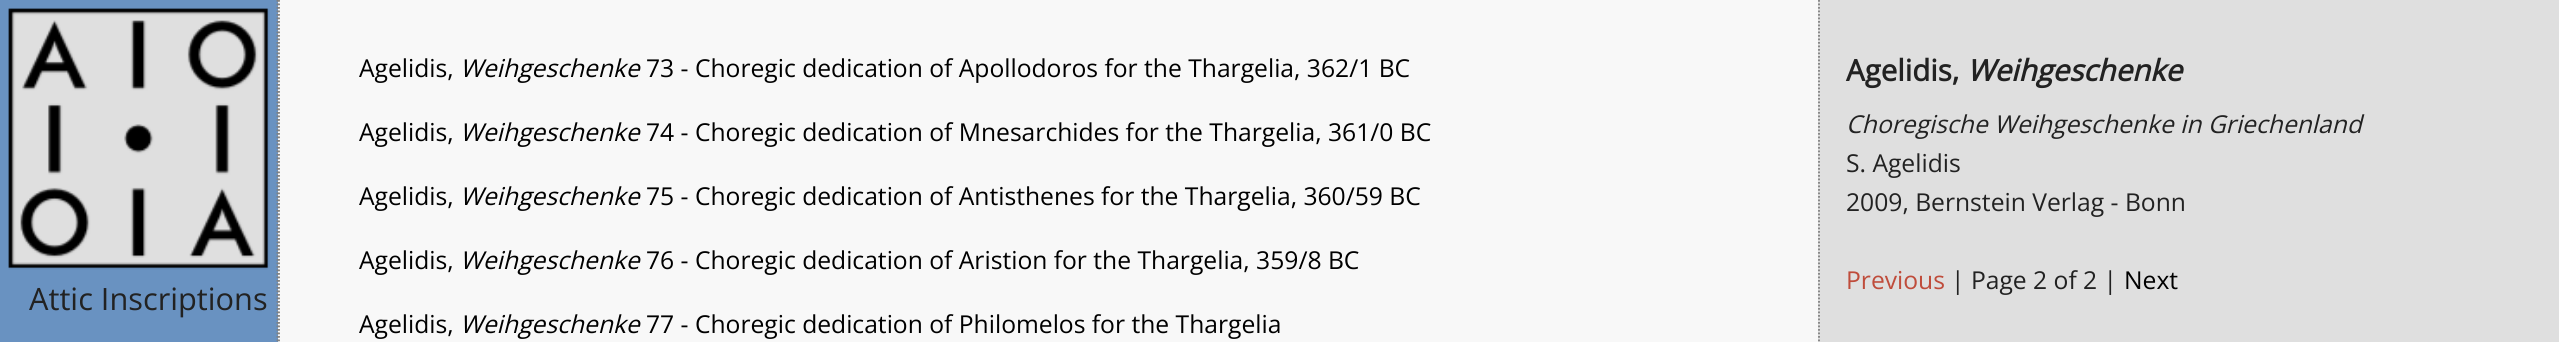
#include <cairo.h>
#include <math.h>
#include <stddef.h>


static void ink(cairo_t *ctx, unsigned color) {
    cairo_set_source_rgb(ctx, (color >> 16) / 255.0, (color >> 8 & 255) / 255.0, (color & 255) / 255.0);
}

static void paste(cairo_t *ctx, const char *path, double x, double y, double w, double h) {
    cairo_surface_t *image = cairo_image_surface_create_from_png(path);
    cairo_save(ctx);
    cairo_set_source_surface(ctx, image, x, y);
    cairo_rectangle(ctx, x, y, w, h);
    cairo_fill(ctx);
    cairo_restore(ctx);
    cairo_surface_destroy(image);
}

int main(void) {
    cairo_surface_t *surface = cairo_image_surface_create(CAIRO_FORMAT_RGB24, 2559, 342);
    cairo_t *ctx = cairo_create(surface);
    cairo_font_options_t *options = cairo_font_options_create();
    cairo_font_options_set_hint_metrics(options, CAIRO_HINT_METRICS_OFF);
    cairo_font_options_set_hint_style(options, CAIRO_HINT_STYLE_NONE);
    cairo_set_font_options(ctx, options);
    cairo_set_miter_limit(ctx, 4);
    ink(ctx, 0xF8F8F8);
    cairo_paint(ctx);
    cairo_new_path(ctx);
    cairo_move_to(ctx, 279, 0);
    cairo_line_to(ctx, 279, 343);
    ink(ctx, 0x808080);
    cairo_set_line_width(ctx, 1.8);
    cairo_set_dash(ctx, (double[]){1.75, 1.75}, 2, 0);
    cairo_stroke(ctx);
    ink(ctx, 0x6992C1);
    cairo_rectangle(ctx, 0, 0, 278, 342);
    cairo_fill(ctx);
    cairo_new_path(ctx);
    cairo_move_to(ctx, 277.5, 0);
    cairo_line_to(ctx, 277.5, 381.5);
    ink(ctx, 0x808080);
    cairo_stroke(ctx);
    paste(ctx, "media/1.png", 8, 8, 262, 262);
    cairo_select_font_face(ctx, "Open Sans", CAIRO_FONT_SLANT_NORMAL, CAIRO_FONT_WEIGHT_NORMAL);
    cairo_set_font_size(ctx, 30.75);
    ink(ctx, 0x222222);
    cairo_move_to(ctx, 29, 310);
    cairo_show_text(ctx, "Attic Inscriptions");
    cairo_set_font_size(ctx, 24.65);
    ink(ctx, 0x000000);
    cairo_move_to(ctx, 359, 77);
    cairo_show_text(ctx, "Agelidis,");
    cairo_select_font_face(ctx, "Open Sans", CAIRO_FONT_SLANT_ITALIC, CAIRO_FONT_WEIGHT_NORMAL);
    cairo_move_to(ctx, 460, 77);
    cairo_show_text(ctx, "Weihgeschenke");
    cairo_select_font_face(ctx, "Open Sans", CAIRO_FONT_SLANT_NORMAL, CAIRO_FONT_WEIGHT_NORMAL);
    cairo_move_to(ctx, 646, 77);
    cairo_show_text(ctx, "73 - Choregic dedication of Apollodoros for the Thargelia, 362/1 BC");
    cairo_move_to(ctx, 359, 141);
    cairo_show_text(ctx, "Agelidis,");
    cairo_select_font_face(ctx, "Open Sans", CAIRO_FONT_SLANT_ITALIC, CAIRO_FONT_WEIGHT_NORMAL);
    cairo_move_to(ctx, 460, 141);
    cairo_show_text(ctx, "Weihgeschenke");
    cairo_select_font_face(ctx, "Open Sans", CAIRO_FONT_SLANT_NORMAL, CAIRO_FONT_WEIGHT_NORMAL);
    cairo_move_to(ctx, 646, 141);
    cairo_show_text(ctx, "74 - Choregic dedication of Mnesarchides for the Thargelia, 361/0 BC");
    cairo_move_to(ctx, 359, 205);
    cairo_show_text(ctx, "Agelidis,");
    cairo_select_font_face(ctx, "Open Sans", CAIRO_FONT_SLANT_ITALIC, CAIRO_FONT_WEIGHT_NORMAL);
    cairo_move_to(ctx, 460, 205);
    cairo_show_text(ctx, "Weihgeschenke");
    cairo_select_font_face(ctx, "Open Sans", CAIRO_FONT_SLANT_NORMAL, CAIRO_FONT_WEIGHT_NORMAL);
    cairo_move_to(ctx, 646, 205);
    cairo_show_text(ctx, "75 - Choregic dedication of Antisthenes for the Thargelia, 360/59 BC");
    cairo_move_to(ctx, 359, 269);
    cairo_show_text(ctx, "Agelidis,");
    cairo_select_font_face(ctx, "Open Sans", CAIRO_FONT_SLANT_ITALIC, CAIRO_FONT_WEIGHT_NORMAL);
    cairo_move_to(ctx, 460, 269);
    cairo_show_text(ctx, "Weihgeschenke");
    cairo_select_font_face(ctx, "Open Sans", CAIRO_FONT_SLANT_NORMAL, CAIRO_FONT_WEIGHT_NORMAL);
    cairo_move_to(ctx, 646, 269);
    cairo_show_text(ctx, "76 - Choregic dedication of Aristion for the Thargelia, 359/8 BC");
    cairo_move_to(ctx, 359, 333);
    cairo_show_text(ctx, "Agelidis,");
    cairo_select_font_face(ctx, "Open Sans", CAIRO_FONT_SLANT_ITALIC, CAIRO_FONT_WEIGHT_NORMAL);
    cairo_move_to(ctx, 460, 333);
    cairo_show_text(ctx, "Weihgeschenke");
    cairo_select_font_face(ctx, "Open Sans", CAIRO_FONT_SLANT_NORMAL, CAIRO_FONT_WEIGHT_NORMAL);
    cairo_move_to(ctx, 646, 333);
    cairo_show_text(ctx, "77 - Choregic dedication of Philomelos for the Thargelia");
    ink(ctx, 0xDFDFDF);
    cairo_rectangle(ctx, 1818, 0, 741, 342);
    cairo_fill(ctx);
    cairo_new_path(ctx);
    cairo_move_to(ctx, 1819, 0);
    cairo_line_to(ctx, 1819, 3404);
    ink(ctx, 0x808080);
    cairo_stroke(ctx);
    cairo_select_font_face(ctx, "Open Sans", CAIRO_FONT_SLANT_NORMAL, CAIRO_FONT_WEIGHT_BOLD);
    cairo_set_font_size(ctx, 29.5);
    ink(ctx, 0x222222);
    cairo_move_to(ctx, 1846, 81);
    cairo_show_text(ctx, "Agelidis,");
    cairo_select_font_face(ctx, "Open Sans", CAIRO_FONT_SLANT_ITALIC, CAIRO_FONT_WEIGHT_BOLD);
    cairo_move_to(ctx, 1967, 81);
    cairo_show_text(ctx, "Weihgeschenke");
    cairo_select_font_face(ctx, "Open Sans", CAIRO_FONT_SLANT_ITALIC, CAIRO_FONT_WEIGHT_NORMAL);
    cairo_set_font_size(ctx, 24.65);
    cairo_move_to(ctx, 1846, 133);
    cairo_show_text(ctx, "Choregische Weihgeschenke in Griechenland");
    cairo_select_font_face(ctx, "Open Sans", CAIRO_FONT_SLANT_NORMAL, CAIRO_FONT_WEIGHT_NORMAL);
    cairo_move_to(ctx, 1846, 172);
    cairo_show_text(ctx, "S. Agelidis");
    cairo_move_to(ctx, 1846, 211);
    cairo_show_text(ctx, "2009, Bernstein Verlag - Bonn");
    ink(ctx, 0xBF4C3B);
    cairo_move_to(ctx, 1846, 289);
    cairo_show_text(ctx, "Previous");
    ink(ctx, 0x222222);
    cairo_move_to(ctx, 1951, 289);
    cairo_show_text(ctx, "| Page 2 of 2 |");
    ink(ctx, 0x000000);
    cairo_move_to(ctx, 2124, 289);
    cairo_show_text(ctx, "Next");
    cairo_surface_write_to_png(surface, "image.png");
    cairo_font_options_destroy(options);
    cairo_destroy(ctx);
    cairo_surface_destroy(surface);
    return 0;
}
